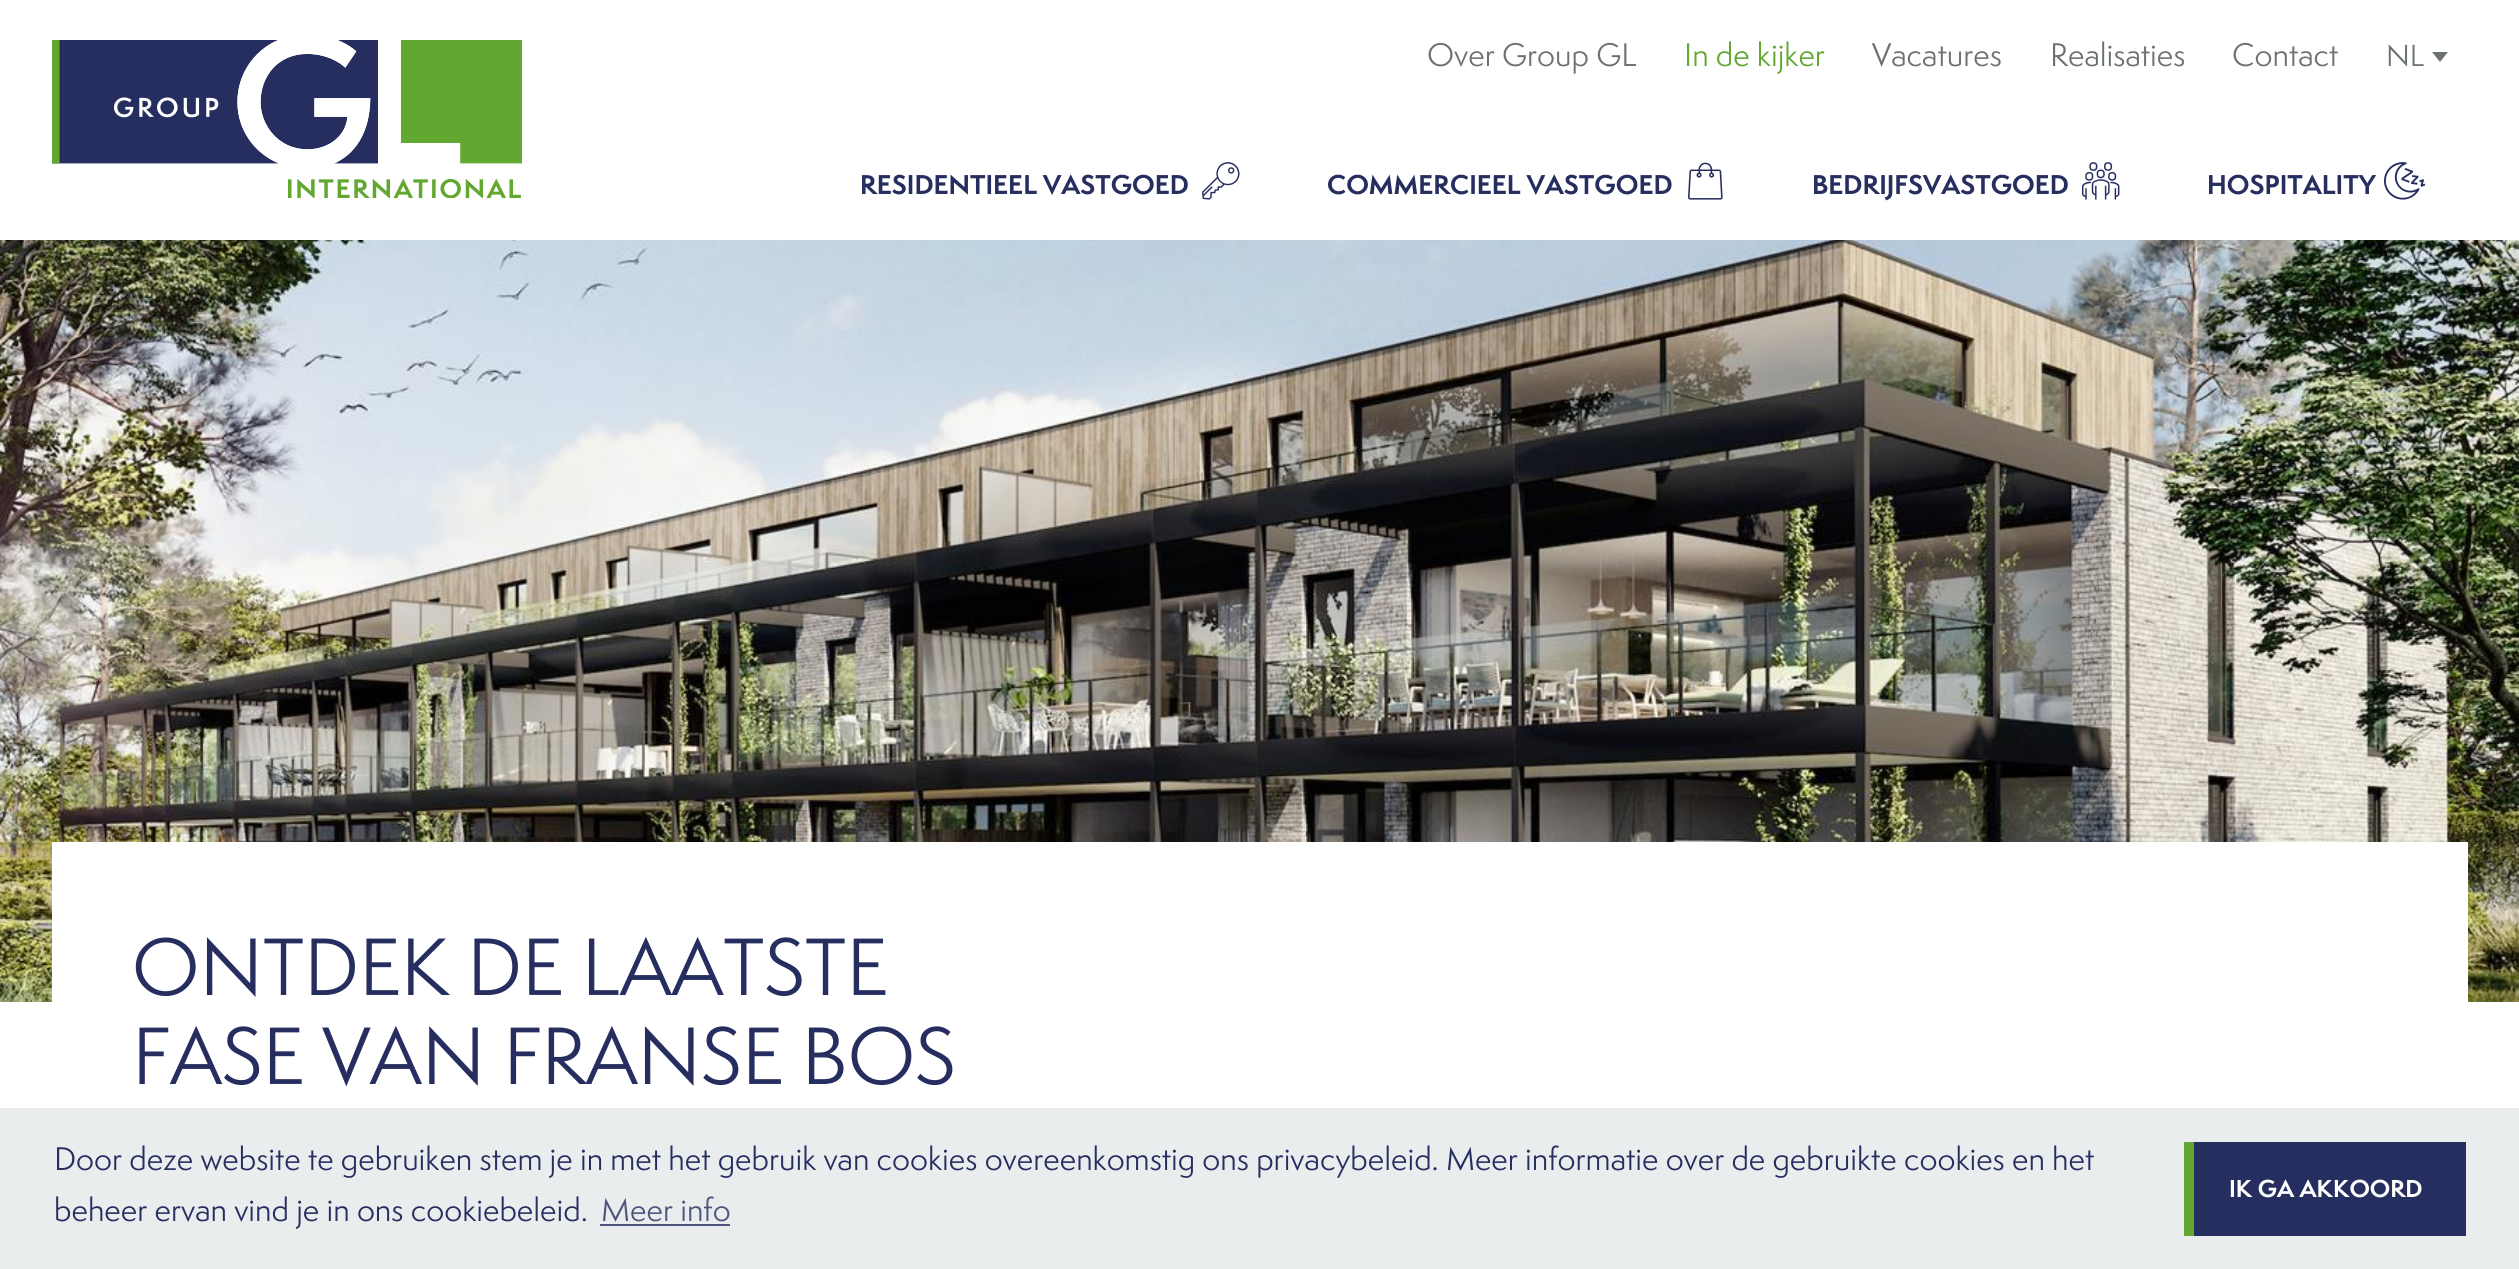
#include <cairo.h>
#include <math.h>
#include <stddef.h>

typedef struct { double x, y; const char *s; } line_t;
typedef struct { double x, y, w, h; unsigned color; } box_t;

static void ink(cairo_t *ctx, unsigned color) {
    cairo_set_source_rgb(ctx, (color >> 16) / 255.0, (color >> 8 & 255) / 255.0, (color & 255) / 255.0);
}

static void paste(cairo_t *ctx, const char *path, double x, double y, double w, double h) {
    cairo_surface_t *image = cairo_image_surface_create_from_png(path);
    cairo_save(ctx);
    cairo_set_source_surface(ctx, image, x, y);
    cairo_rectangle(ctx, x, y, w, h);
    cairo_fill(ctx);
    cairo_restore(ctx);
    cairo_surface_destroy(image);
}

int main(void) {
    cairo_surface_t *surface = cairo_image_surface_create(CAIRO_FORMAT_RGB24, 2519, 1269);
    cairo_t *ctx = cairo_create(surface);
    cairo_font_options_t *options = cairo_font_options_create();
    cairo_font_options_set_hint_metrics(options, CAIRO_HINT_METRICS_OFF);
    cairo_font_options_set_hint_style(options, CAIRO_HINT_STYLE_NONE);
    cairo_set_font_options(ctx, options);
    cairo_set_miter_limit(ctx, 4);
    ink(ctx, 0xFFFFFF);
    cairo_paint(ctx);
    paste(ctx, "media/1.png", 52, 40, 470, 158);
    cairo_select_font_face(ctx, "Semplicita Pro", CAIRO_FONT_SLANT_NORMAL, CAIRO_FONT_WEIGHT_NORMAL);
    cairo_set_font_size(ctx, 30);
    ink(ctx, 0x6C7171);
    cairo_move_to(ctx, 1427, 66);
    cairo_show_text(ctx, "Over Group GL");
    ink(ctx, 0x61A730);
    cairo_move_to(ctx, 1684, 66);
    cairo_show_text(ctx, "In de kijker");
    ink(ctx, 0x6C7171);
    {
        static const line_t items[] = {
            {1872, 66, "Vacatures"},
            {2050, 66, "Realisaties"},
            {2232, 66, "Contact"},
        };
        for (size_t i = 0; i < sizeof items / sizeof *items; i++) {
            cairo_move_to(ctx, items[i].x, items[i].y);
            cairo_show_text(ctx, items[i].s);
        }
    }
    cairo_set_font_size(ctx, 28);
    cairo_move_to(ctx, 2386, 66);
    cairo_show_text(ctx, "NL");
    cairo_new_path(ctx);
    cairo_move_to(ctx, 2432, 52);
    cairo_line_to(ctx, 2448, 52);
    cairo_line_to(ctx, 2440, 62);
    cairo_close_path(ctx);
    cairo_fill(ctx);
    cairo_select_font_face(ctx, "Semplicita Pro", CAIRO_FONT_SLANT_NORMAL, CAIRO_FONT_WEIGHT_BOLD);
    cairo_set_font_size(ctx, 25);
    ink(ctx, 0x262E60);
    cairo_move_to(ctx, 860, 194);
    cairo_show_text(ctx, "RESIDENTIEEL VASTGOED");
    paste(ctx, "media/2.png", 1202, 162, 38, 38);
    cairo_move_to(ctx, 1327, 194);
    cairo_show_text(ctx, "COMMERCIEEL VASTGOED");
    paste(ctx, "media/3.png", 1688, 162, 35, 38);
    cairo_move_to(ctx, 1812, 194);
    cairo_show_text(ctx, "BEDRIJFSVASTGOED");
    paste(ctx, "media/4.png", 2082, 162, 38, 38);
    cairo_move_to(ctx, 2207, 194);
    cairo_show_text(ctx, "HOSPITALITY");
    paste(ctx, "media/5.png", 2384, 162, 42, 38);
    paste(ctx, "media/6.png", 0, 240, 2519, 762);
    ink(ctx, 0xFFFFFF);
    cairo_rectangle(ctx, 52, 842, 2416, 160);
    cairo_fill(ctx);
    cairo_select_font_face(ctx, "Semplicita Pro", CAIRO_FONT_SLANT_NORMAL, CAIRO_FONT_WEIGHT_NORMAL);
    cairo_set_font_size(ctx, 74.6);
    ink(ctx, 0x262E60);
    cairo_move_to(ctx, 132, 995);
    cairo_show_text(ctx, "ONTDEK DE LAATSTE");
    cairo_move_to(ctx, 132, 1084);
    cairo_show_text(ctx, "FASE VAN FRANSE BOS");
    ink(ctx, 0xE9EDED);
    cairo_rectangle(ctx, 0, 1108, 2519, 161);
    cairo_fill(ctx);
    cairo_set_font_size(ctx, 30);
    ink(ctx, 0x262E60);
    cairo_move_to(ctx, 54, 1170);
    cairo_show_text(ctx, "Door deze website te gebruiken stem je in met het gebruik van cookies overeenkomstig ons privacybeleid. Meer informatie over de gebruikte cookies en het");
    cairo_move_to(ctx, 54, 1221);
    cairo_show_text(ctx, "beheer ervan vind je in ons cookiebeleid.");
    ink(ctx, 0x4D547C);
    cairo_move_to(ctx, 601, 1221);
    cairo_show_text(ctx, "Meer info");
    {
        static const box_t items[] = {
            {600, 1224, 130, 2, 0x4D547C},
            {2194, 1142, 272, 94, 0x262E60},
            {2184, 1142, 10, 94, 0x61A730},
        };
        for (size_t i = 0; i < sizeof items / sizeof *items; i++) {
            ink(ctx, items[i].color);
            cairo_rectangle(ctx, items[i].x, items[i].y, items[i].w, items[i].h);
            cairo_fill(ctx);
        }
    }
    cairo_select_font_face(ctx, "Semplicita Pro", CAIRO_FONT_SLANT_NORMAL, CAIRO_FONT_WEIGHT_BOLD);
    cairo_set_font_size(ctx, 22.5);
    ink(ctx, 0xFFFFFF);
    cairo_move_to(ctx, 2229, 1197);
    cairo_show_text(ctx, "IK GA AKKOORD");
    cairo_surface_write_to_png(surface, "image.png");
    cairo_font_options_destroy(options);
    cairo_destroy(ctx);
    cairo_surface_destroy(surface);
    return 0;
}
